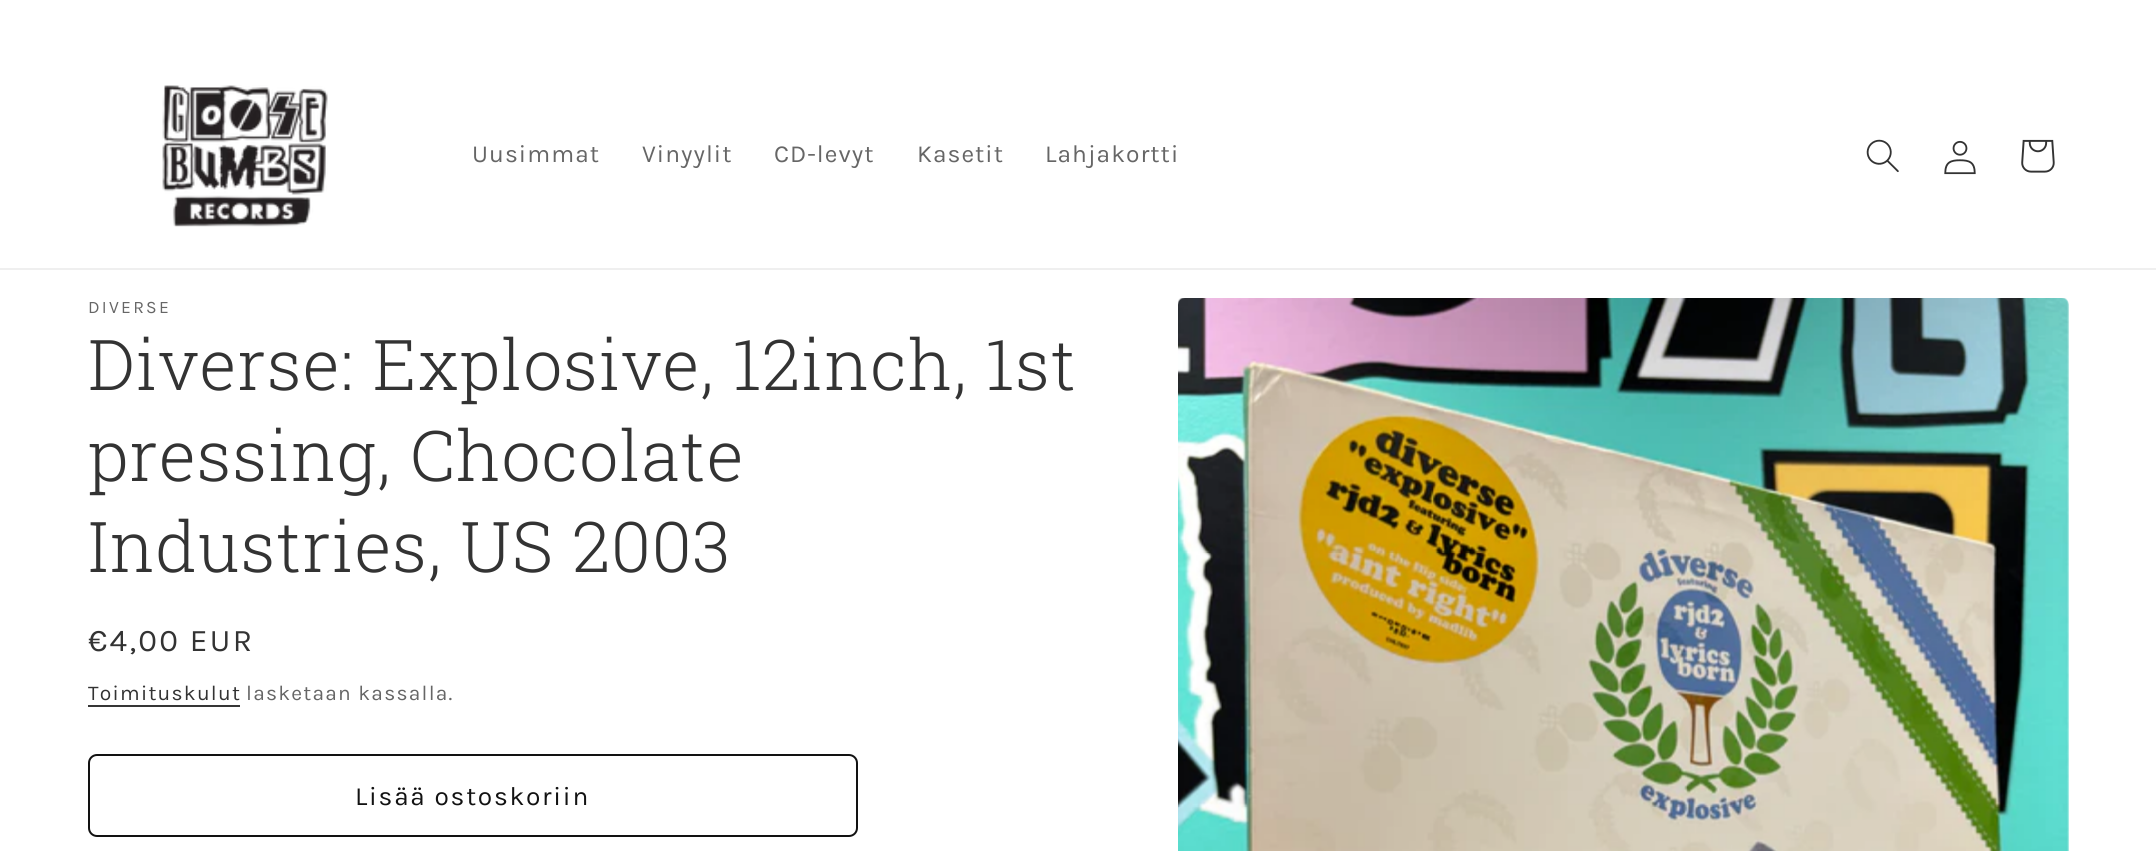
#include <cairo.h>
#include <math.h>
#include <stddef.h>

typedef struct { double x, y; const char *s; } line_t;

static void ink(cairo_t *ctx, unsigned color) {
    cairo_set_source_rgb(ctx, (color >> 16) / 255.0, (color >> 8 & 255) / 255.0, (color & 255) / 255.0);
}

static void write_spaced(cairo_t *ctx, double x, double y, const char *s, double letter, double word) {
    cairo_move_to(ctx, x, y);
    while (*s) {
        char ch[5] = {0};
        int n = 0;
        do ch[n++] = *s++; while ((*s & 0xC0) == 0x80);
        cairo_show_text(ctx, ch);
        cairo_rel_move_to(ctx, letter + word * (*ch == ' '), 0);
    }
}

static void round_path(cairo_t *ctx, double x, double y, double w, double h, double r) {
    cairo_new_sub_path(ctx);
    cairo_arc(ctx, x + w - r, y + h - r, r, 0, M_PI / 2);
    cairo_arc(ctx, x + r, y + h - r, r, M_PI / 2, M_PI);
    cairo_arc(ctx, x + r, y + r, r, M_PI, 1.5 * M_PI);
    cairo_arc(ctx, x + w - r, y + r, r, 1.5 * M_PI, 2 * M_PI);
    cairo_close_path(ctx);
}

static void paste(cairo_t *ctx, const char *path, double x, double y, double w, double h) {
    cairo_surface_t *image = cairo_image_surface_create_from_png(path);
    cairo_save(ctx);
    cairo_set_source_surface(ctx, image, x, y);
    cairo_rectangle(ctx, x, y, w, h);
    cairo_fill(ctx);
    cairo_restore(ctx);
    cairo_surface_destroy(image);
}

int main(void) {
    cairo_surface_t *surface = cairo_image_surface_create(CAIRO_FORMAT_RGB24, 2156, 851);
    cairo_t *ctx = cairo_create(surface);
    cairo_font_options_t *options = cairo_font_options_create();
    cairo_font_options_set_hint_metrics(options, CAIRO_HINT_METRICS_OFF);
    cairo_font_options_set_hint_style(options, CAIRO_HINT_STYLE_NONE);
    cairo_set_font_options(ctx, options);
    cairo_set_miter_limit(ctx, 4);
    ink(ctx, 0xFFFFFF);
    cairo_paint(ctx);
    ink(ctx, 0xEFEFEF);
    cairo_rectangle(ctx, 0, 268, 2156, 2);
    cairo_fill(ctx);
    paste(ctx, "media/1.png", 162, 85, 166, 142);
    cairo_select_font_face(ctx, "Karla", CAIRO_FONT_SLANT_NORMAL, CAIRO_FONT_WEIGHT_NORMAL);
    cairo_set_font_size(ctx, 24.5);
    ink(ctx, 0x666666);
    {
        static const line_t items[] = {
            {472, 162, "Uusimmat"},
            {642, 162, "Vinyylit"},
            {774, 162, "CD-levyt"},
            {917, 162, "Kasetit"},
            {1045, 162, "Lahjakortti"},
        };
        for (size_t i = 0; i < sizeof items / sizeof *items; i++) {
            write_spaced(ctx, items[i].x, items[i].y, items[i].s, 1.05, 0);
        }
    }
    paste(ctx, "media/2.png", 1866, 139, 33, 34);
    paste(ctx, "media/3.png", 1944, 140, 32, 35);
    paste(ctx, "media/4.png", 2021, 139, 34, 34);
    cairo_set_font_size(ctx, 17.5);
    write_spaced(ctx, 88, 313, "DIVERSE", 2.25, 0);
    cairo_select_font_face(ctx, "Roboto Slab Light", CAIRO_FONT_SLANT_NORMAL, CAIRO_FONT_WEIGHT_NORMAL);
    cairo_set_font_size(ctx, 70);
    ink(ctx, 0x333333);
    {
        static const line_t items[] = {
            {88, 390, "Diverse: Explosive, 12inch, 1st"},
            {88, 481, "pressing, Chocolate"},
            {88, 572, "Industries, US 2003"},
        };
        for (size_t i = 0; i < sizeof items / sizeof *items; i++) {
            write_spaced(ctx, items[i].x, items[i].y, items[i].s, 1.05, 0);
        }
    }
    cairo_select_font_face(ctx, "Karla", CAIRO_FONT_SLANT_NORMAL, CAIRO_FONT_WEIGHT_NORMAL);
    cairo_set_font_size(ctx, 31.5);
    write_spaced(ctx, 88, 651, "€4,00 EUR", 2.25, 0);
    cairo_set_font_size(ctx, 21);
    write_spaced(ctx, 88, 700, "Toimituskulut", 1.25, 0);
    ink(ctx, 0x363636);
    cairo_rectangle(ctx, 88, 705, 152, 2);
    cairo_fill(ctx);
    ink(ctx, 0x666666);
    write_spaced(ctx, 246, 700, "lasketaan kassalla.", 1.25, 0);
    round_path(ctx, 89, 755, 768, 81, 8);
    ink(ctx, 0x121212);
    cairo_stroke(ctx);
    cairo_set_font_size(ctx, 26.25);
    write_spaced(ctx, 355, 805, "Lisää ostoskoriin", 1.75, 0);
    paste(ctx, "media/5.png", 1178, 298, 891, 553);
    cairo_surface_write_to_png(surface, "image.png");
    cairo_font_options_destroy(options);
    cairo_destroy(ctx);
    cairo_surface_destroy(surface);
    return 0;
}
